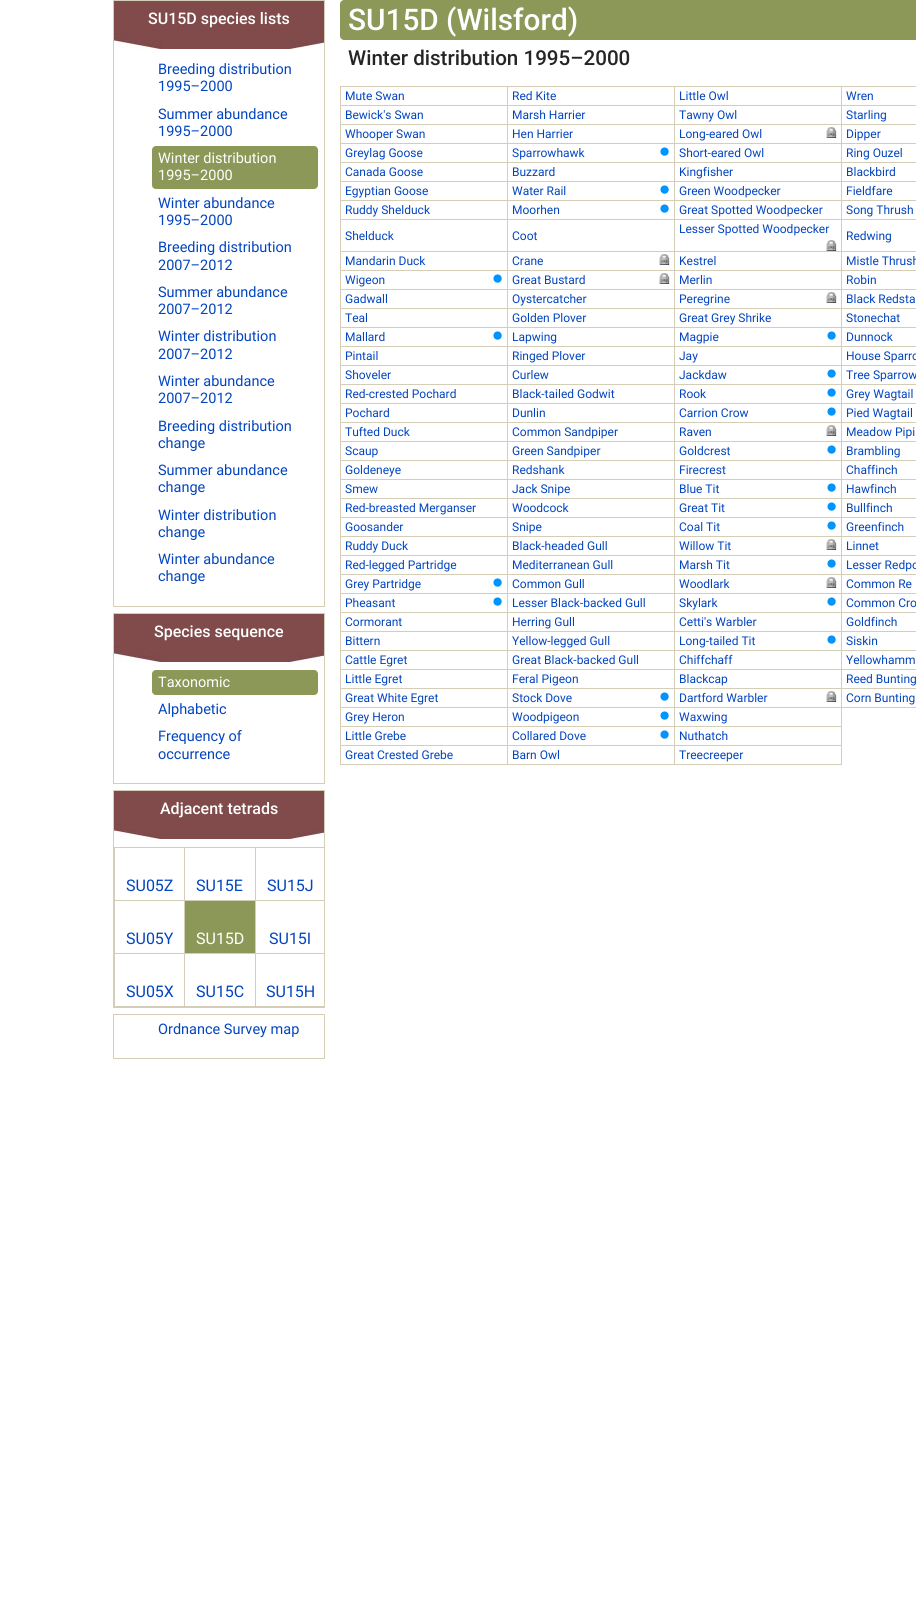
#include <cairo.h>
#include <math.h>
#include <stddef.h>

typedef struct { double x, y; const char *s; } line_t;
typedef struct { double x, y, w, h; unsigned color; } box_t;

static void ink(cairo_t *ctx, unsigned color) {
    cairo_set_source_rgb(ctx, (color >> 16) / 255.0, (color >> 8 & 255) / 255.0, (color & 255) / 255.0);
}

static void round_path(cairo_t *ctx, double x, double y, double w, double h, double r) {
    cairo_new_sub_path(ctx);
    cairo_arc(ctx, x + w - r, y + h - r, r, 0, M_PI / 2);
    cairo_arc(ctx, x + r, y + h - r, r, M_PI / 2, M_PI);
    cairo_arc(ctx, x + r, y + r, r, M_PI, 1.5 * M_PI);
    cairo_arc(ctx, x + w - r, y + r, r, 1.5 * M_PI, 2 * M_PI);
    cairo_close_path(ctx);
}

static void paste(cairo_t *ctx, const char *path, double x, double y, double w, double h) {
    cairo_surface_t *image = cairo_image_surface_create_from_png(path);
    cairo_save(ctx);
    cairo_set_source_surface(ctx, image, x, y);
    cairo_rectangle(ctx, x, y, w, h);
    cairo_fill(ctx);
    cairo_restore(ctx);
    cairo_surface_destroy(image);
}

int main(void) {
    cairo_surface_t *surface = cairo_image_surface_create(CAIRO_FORMAT_RGB24, 916, 1597);
    cairo_t *ctx = cairo_create(surface);
    cairo_font_options_t *options = cairo_font_options_create();
    cairo_font_options_set_hint_metrics(options, CAIRO_HINT_METRICS_OFF);
    cairo_font_options_set_hint_style(options, CAIRO_HINT_STYLE_NONE);
    cairo_set_font_options(ctx, options);
    cairo_set_miter_limit(ctx, 4);
    ink(ctx, 0xFFFFFF);
    cairo_paint(ctx);
    cairo_rectangle(ctx, 113.5, 0.5, 211, 606);
    ink(ctx, 0xD4CEB9);
    cairo_set_line_width(ctx, 1);
    cairo_stroke(ctx);
    paste(ctx, "media/1.png", 114, 1, 210, 48);
    cairo_select_font_face(ctx, "Roboto Medium", CAIRO_FONT_SLANT_NORMAL, CAIRO_FONT_WEIGHT_NORMAL);
    cairo_set_font_size(ctx, 16);
    ink(ctx, 0xFFFFFF);
    cairo_move_to(ctx, 148, 24);
    cairo_show_text(ctx, "SU15D species lists");
    cairo_select_font_face(ctx, "Roboto", CAIRO_FONT_SLANT_NORMAL, CAIRO_FONT_WEIGHT_NORMAL);
    cairo_set_font_size(ctx, 14.5);
    ink(ctx, 0x0345BF);
    {
        static const line_t items[] = {
            {158, 74, "Breeding distribution"},
            {158, 91, "1995–2000"},
            {158, 119, "Summer abundance"},
            {158, 136, "1995–2000"},
        };
        for (size_t i = 0; i < sizeof items / sizeof *items; i++) {
            cairo_move_to(ctx, items[i].x, items[i].y);
            cairo_show_text(ctx, items[i].s);
        }
    }
    ink(ctx, 0x8B9857);
    round_path(ctx, 152, 146, 166, 43, 4);
    cairo_fill(ctx);
    ink(ctx, 0xFFFFFF);
    cairo_move_to(ctx, 158, 163);
    cairo_show_text(ctx, "Winter distribution");
    cairo_move_to(ctx, 158, 180);
    cairo_show_text(ctx, "1995–2000");
    ink(ctx, 0x0345BF);
    {
        static const line_t items[] = {
            {158, 208, "Winter abundance"},
            {158, 225, "1995–2000"},
            {158, 252, "Breeding distribution"},
            {158, 270, "2007–2012"},
            {158, 297, "Summer abundance"},
            {158, 314, "2007–2012"},
            {158, 341, "Winter distribution"},
            {158, 359, "2007–2012"},
            {158, 386, "Winter abundance"},
            {158, 403, "2007–2012"},
            {158, 431, "Breeding distribution"},
            {158, 448, "change"},
            {158, 475, "Summer abundance"},
            {158, 492, "change"},
            {158, 520, "Winter distribution"},
            {158, 537, "change"},
            {158, 564, "Winter abundance"},
            {158, 581, "change"},
        };
        for (size_t i = 0; i < sizeof items / sizeof *items; i++) {
            cairo_move_to(ctx, items[i].x, items[i].y);
            cairo_show_text(ctx, items[i].s);
        }
    }
    cairo_rectangle(ctx, 113.5, 613.5, 211, 170);
    ink(ctx, 0xD4CEB9);
    cairo_stroke(ctx);
    paste(ctx, "media/1.png", 114, 614, 210, 48);
    cairo_select_font_face(ctx, "Roboto Medium", CAIRO_FONT_SLANT_NORMAL, CAIRO_FONT_WEIGHT_NORMAL);
    cairo_set_font_size(ctx, 16);
    ink(ctx, 0xFFFFFF);
    cairo_move_to(ctx, 154, 637);
    cairo_show_text(ctx, "Species sequence");
    ink(ctx, 0x8B9857);
    round_path(ctx, 152, 670, 166, 25, 4);
    cairo_fill(ctx);
    cairo_select_font_face(ctx, "Roboto", CAIRO_FONT_SLANT_NORMAL, CAIRO_FONT_WEIGHT_NORMAL);
    cairo_set_font_size(ctx, 14.5);
    ink(ctx, 0xFFFFFF);
    cairo_move_to(ctx, 158, 687);
    cairo_show_text(ctx, "Taxonomic");
    ink(ctx, 0x0345BF);
    {
        static const line_t items[] = {
            {158, 714, "Alphabetic"},
            {158, 741, "Frequency of"},
            {158, 759, "occurrence"},
        };
        for (size_t i = 0; i < sizeof items / sizeof *items; i++) {
            cairo_move_to(ctx, items[i].x, items[i].y);
            cairo_show_text(ctx, items[i].s);
        }
    }
    cairo_rectangle(ctx, 113.5, 790.5, 211, 217);
    ink(ctx, 0xD4CEB9);
    cairo_stroke(ctx);
    paste(ctx, "media/1.png", 114, 791, 210, 48);
    cairo_select_font_face(ctx, "Roboto Medium", CAIRO_FONT_SLANT_NORMAL, CAIRO_FONT_WEIGHT_NORMAL);
    cairo_set_font_size(ctx, 16);
    ink(ctx, 0xFFFFFF);
    cairo_move_to(ctx, 160, 814);
    cairo_show_text(ctx, "Adjacent tetrads");
    {
        static const box_t items[] = {
            {255, 847, 70, 1, 0xD4CEB9},
            {255, 900, 70, 1, 0xD4CEB9},
            {255, 953, 70, 1, 0xD4CEB9},
            {255, 1006, 70, 1, 0xD4CEB9},
            {255, 953, 1, 54, 0xD4CEB9},
            {184, 953, 72, 1, 0xD4CEB9},
            {255, 900, 1, 54, 0xD4CEB9},
            {184, 900, 72, 1, 0xD4CEB9},
            {255, 847, 1, 54, 0xD4CEB9},
            {184, 847, 72, 1, 0xD4CEB9},
            {184, 1006, 72, 1, 0xD4CEB9},
            {184, 953, 1, 54, 0xD4CEB9},
            {114, 953, 71, 1, 0xD4CEB9},
            {184, 900, 1, 54, 0xD4CEB9},
            {114, 900, 71, 1, 0xD4CEB9},
            {184, 847, 1, 54, 0xD4CEB9},
            {114, 847, 71, 1, 0xD4CEB9},
            {114, 1006, 71, 1, 0xD4CEB9},
            {114, 953, 1, 54, 0xD4CEB9},
            {114, 900, 1, 54, 0xD4CEB9},
            {114, 847, 1, 54, 0xD4CEB9},
        };
        for (size_t i = 0; i < sizeof items / sizeof *items; i++) {
            ink(ctx, items[i].color);
            cairo_rectangle(ctx, items[i].x, items[i].y, items[i].w, items[i].h);
            cairo_fill(ctx);
        }
    }
    cairo_select_font_face(ctx, "Roboto", CAIRO_FONT_SLANT_NORMAL, CAIRO_FONT_WEIGHT_NORMAL);
    ink(ctx, 0x0345BF);
    {
        static const line_t items[] = {
            {126, 891, "SU05Z"},
            {196, 891, "SU15E"},
            {267, 891, "SU15J"},
            {126, 944, "SU05Y"},
        };
        for (size_t i = 0; i < sizeof items / sizeof *items; i++) {
            cairo_move_to(ctx, items[i].x, items[i].y);
            cairo_show_text(ctx, items[i].s);
        }
    }
    ink(ctx, 0x8B9857);
    cairo_rectangle(ctx, 185, 901, 70, 52);
    cairo_fill(ctx);
    ink(ctx, 0xFFFFFF);
    cairo_move_to(ctx, 196, 944);
    cairo_show_text(ctx, "SU15D");
    ink(ctx, 0x0345BF);
    {
        static const line_t items[] = {
            {269, 944, "SU15I"},
            {126, 997, "SU05X"},
            {196, 997, "SU15C"},
            {266, 997, "SU15H"},
        };
        for (size_t i = 0; i < sizeof items / sizeof *items; i++) {
            cairo_move_to(ctx, items[i].x, items[i].y);
            cairo_show_text(ctx, items[i].s);
        }
    }
    cairo_rectangle(ctx, 113.5, 1014.5, 211, 44);
    ink(ctx, 0xD4CEB9);
    cairo_stroke(ctx);
    cairo_set_font_size(ctx, 14.5);
    ink(ctx, 0x0345BF);
    cairo_move_to(ctx, 158, 1034);
    cairo_show_text(ctx, "Ordnance Survey map");
    ink(ctx, 0x8B9857);
    cairo_new_path(ctx);
    cairo_move_to(ctx, 344, 0);
    cairo_line_to(ctx, 916, 0);
    cairo_line_to(ctx, 916, 40);
    cairo_line_to(ctx, 344, 40);
    cairo_curve_to(ctx, 342, 40, 340, 38, 340, 36);
    cairo_line_to(ctx, 340, 4);
    cairo_curve_to(ctx, 340, 2, 342, 0, 344, 0);
    cairo_close_path(ctx);
    cairo_fill(ctx);
    cairo_select_font_face(ctx, "Roboto Medium", CAIRO_FONT_SLANT_NORMAL, CAIRO_FONT_WEIGHT_NORMAL);
    cairo_set_font_size(ctx, 29.75);
    ink(ctx, 0xFFFFFF);
    cairo_move_to(ctx, 348, 30);
    cairo_show_text(ctx, "SU15D (Wilsford)");
    cairo_set_font_size(ctx, 20.6);
    ink(ctx, 0x252525);
    cairo_move_to(ctx, 348, 65);
    cairo_show_text(ctx, "Winter distribution 1995–2000");
    {
        static const box_t items[] = {
            {841, 86, 75, 1, 0xD4CEB9},
            {841, 105, 75, 1, 0xD4CEB9},
            {841, 124, 75, 1, 0xD4CEB9},
            {841, 143, 75, 1, 0xD4CEB9},
            {841, 162, 75, 1, 0xD4CEB9},
            {841, 181, 75, 1, 0xD4CEB9},
            {841, 200, 75, 1, 0xD4CEB9},
            {841, 219, 75, 1, 0xD4CEB9},
            {841, 251, 75, 1, 0xD4CEB9},
            {841, 270, 75, 1, 0xD4CEB9},
            {841, 289, 75, 1, 0xD4CEB9},
            {841, 308, 75, 1, 0xD4CEB9},
            {841, 327, 75, 1, 0xD4CEB9},
            {841, 346, 75, 1, 0xD4CEB9},
            {841, 365, 75, 1, 0xD4CEB9},
            {841, 384, 75, 1, 0xD4CEB9},
            {841, 403, 75, 1, 0xD4CEB9},
            {841, 422, 75, 1, 0xD4CEB9},
            {841, 441, 75, 1, 0xD4CEB9},
            {841, 460, 75, 1, 0xD4CEB9},
            {841, 479, 75, 1, 0xD4CEB9},
            {841, 498, 75, 1, 0xD4CEB9},
            {841, 517, 75, 1, 0xD4CEB9},
            {841, 536, 75, 1, 0xD4CEB9},
            {841, 555, 75, 1, 0xD4CEB9},
            {841, 574, 75, 1, 0xD4CEB9},
            {841, 593, 75, 1, 0xD4CEB9},
            {841, 612, 75, 1, 0xD4CEB9},
            {841, 631, 75, 1, 0xD4CEB9},
            {841, 650, 75, 1, 0xD4CEB9},
            {841, 669, 75, 1, 0xD4CEB9},
            {841, 688, 75, 1, 0xD4CEB9},
            {674, 707, 168, 1, 0xD4CEB9},
            {674, 726, 168, 1, 0xD4CEB9},
            {674, 745, 168, 1, 0xD4CEB9},
            {841, 745, 1, 20, 0xD4CEB9},
            {841, 726, 1, 20, 0xD4CEB9},
            {841, 707, 1, 20, 0xD4CEB9},
            {841, 707, 75, 1, 0xD4CEB9},
            {841, 688, 1, 20, 0xD4CEB9},
            {674, 688, 168, 1, 0xD4CEB9},
            {841, 669, 1, 20, 0xD4CEB9},
            {674, 669, 168, 1, 0xD4CEB9},
            {841, 650, 1, 20, 0xD4CEB9},
            {674, 650, 168, 1, 0xD4CEB9},
            {841, 631, 1, 20, 0xD4CEB9},
            {674, 631, 168, 1, 0xD4CEB9},
            {841, 612, 1, 20, 0xD4CEB9},
            {674, 612, 168, 1, 0xD4CEB9},
            {841, 593, 1, 20, 0xD4CEB9},
            {674, 593, 168, 1, 0xD4CEB9},
            {841, 574, 1, 20, 0xD4CEB9},
            {674, 574, 168, 1, 0xD4CEB9},
            {841, 555, 1, 20, 0xD4CEB9},
            {674, 555, 168, 1, 0xD4CEB9},
            {841, 536, 1, 20, 0xD4CEB9},
            {674, 536, 168, 1, 0xD4CEB9},
            {841, 517, 1, 20, 0xD4CEB9},
            {674, 517, 168, 1, 0xD4CEB9},
            {841, 498, 1, 20, 0xD4CEB9},
            {674, 498, 168, 1, 0xD4CEB9},
            {841, 479, 1, 20, 0xD4CEB9},
            {674, 479, 168, 1, 0xD4CEB9},
            {841, 460, 1, 20, 0xD4CEB9},
            {674, 460, 168, 1, 0xD4CEB9},
            {841, 441, 1, 20, 0xD4CEB9},
            {674, 441, 168, 1, 0xD4CEB9},
            {841, 422, 1, 20, 0xD4CEB9},
            {674, 422, 168, 1, 0xD4CEB9},
            {841, 403, 1, 20, 0xD4CEB9},
            {674, 403, 168, 1, 0xD4CEB9},
            {841, 384, 1, 20, 0xD4CEB9},
            {674, 384, 168, 1, 0xD4CEB9},
            {841, 365, 1, 20, 0xD4CEB9},
            {674, 365, 168, 1, 0xD4CEB9},
            {841, 346, 1, 20, 0xD4CEB9},
            {674, 346, 168, 1, 0xD4CEB9},
            {841, 327, 1, 20, 0xD4CEB9},
            {674, 327, 168, 1, 0xD4CEB9},
            {841, 308, 1, 20, 0xD4CEB9},
            {674, 308, 168, 1, 0xD4CEB9},
            {841, 289, 1, 20, 0xD4CEB9},
            {674, 289, 168, 1, 0xD4CEB9},
            {841, 270, 1, 20, 0xD4CEB9},
            {674, 270, 168, 1, 0xD4CEB9},
            {841, 251, 1, 20, 0xD4CEB9},
            {674, 251, 168, 1, 0xD4CEB9},
            {841, 219, 1, 33, 0xD4CEB9},
            {674, 219, 168, 1, 0xD4CEB9},
            {841, 200, 1, 20, 0xD4CEB9},
            {674, 200, 168, 1, 0xD4CEB9},
            {841, 181, 1, 20, 0xD4CEB9},
            {674, 181, 168, 1, 0xD4CEB9},
            {841, 162, 1, 20, 0xD4CEB9},
            {674, 162, 168, 1, 0xD4CEB9},
            {841, 143, 1, 20, 0xD4CEB9},
            {674, 143, 168, 1, 0xD4CEB9},
            {841, 124, 1, 20, 0xD4CEB9},
            {674, 124, 168, 1, 0xD4CEB9},
            {841, 105, 1, 20, 0xD4CEB9},
            {674, 105, 168, 1, 0xD4CEB9},
            {841, 86, 1, 20, 0xD4CEB9},
            {674, 86, 168, 1, 0xD4CEB9},
            {674, 764, 168, 1, 0xD4CEB9},
            {674, 745, 1, 20, 0xD4CEB9},
            {507, 745, 168, 1, 0xD4CEB9},
            {674, 726, 1, 20, 0xD4CEB9},
            {507, 726, 168, 1, 0xD4CEB9},
            {674, 707, 1, 20, 0xD4CEB9},
            {507, 707, 168, 1, 0xD4CEB9},
            {674, 688, 1, 20, 0xD4CEB9},
            {507, 688, 168, 1, 0xD4CEB9},
            {674, 669, 1, 20, 0xD4CEB9},
            {507, 669, 168, 1, 0xD4CEB9},
            {674, 650, 1, 20, 0xD4CEB9},
            {507, 650, 168, 1, 0xD4CEB9},
            {674, 631, 1, 20, 0xD4CEB9},
            {507, 631, 168, 1, 0xD4CEB9},
            {674, 612, 1, 20, 0xD4CEB9},
            {507, 612, 168, 1, 0xD4CEB9},
            {674, 593, 1, 20, 0xD4CEB9},
            {507, 593, 168, 1, 0xD4CEB9},
            {674, 574, 1, 20, 0xD4CEB9},
            {507, 574, 168, 1, 0xD4CEB9},
            {674, 555, 1, 20, 0xD4CEB9},
            {507, 555, 168, 1, 0xD4CEB9},
            {674, 536, 1, 20, 0xD4CEB9},
            {507, 536, 168, 1, 0xD4CEB9},
            {674, 517, 1, 20, 0xD4CEB9},
            {507, 517, 168, 1, 0xD4CEB9},
            {674, 498, 1, 20, 0xD4CEB9},
            {507, 498, 168, 1, 0xD4CEB9},
            {674, 479, 1, 20, 0xD4CEB9},
            {507, 479, 168, 1, 0xD4CEB9},
            {674, 460, 1, 20, 0xD4CEB9},
            {507, 460, 168, 1, 0xD4CEB9},
            {674, 441, 1, 20, 0xD4CEB9},
            {507, 441, 168, 1, 0xD4CEB9},
            {674, 422, 1, 20, 0xD4CEB9},
            {507, 422, 168, 1, 0xD4CEB9},
            {674, 403, 1, 20, 0xD4CEB9},
            {507, 403, 168, 1, 0xD4CEB9},
            {674, 384, 1, 20, 0xD4CEB9},
            {507, 384, 168, 1, 0xD4CEB9},
            {674, 365, 1, 20, 0xD4CEB9},
            {507, 365, 168, 1, 0xD4CEB9},
            {674, 346, 1, 20, 0xD4CEB9},
            {507, 346, 168, 1, 0xD4CEB9},
            {674, 327, 1, 20, 0xD4CEB9},
            {507, 327, 168, 1, 0xD4CEB9},
            {674, 308, 1, 20, 0xD4CEB9},
            {507, 308, 168, 1, 0xD4CEB9},
            {674, 289, 1, 20, 0xD4CEB9},
            {507, 289, 168, 1, 0xD4CEB9},
            {674, 270, 1, 20, 0xD4CEB9},
            {507, 270, 168, 1, 0xD4CEB9},
            {674, 251, 1, 20, 0xD4CEB9},
            {507, 251, 168, 1, 0xD4CEB9},
            {674, 219, 1, 33, 0xD4CEB9},
            {507, 219, 168, 1, 0xD4CEB9},
            {674, 200, 1, 20, 0xD4CEB9},
            {507, 200, 168, 1, 0xD4CEB9},
            {674, 181, 1, 20, 0xD4CEB9},
            {507, 181, 168, 1, 0xD4CEB9},
            {674, 162, 1, 20, 0xD4CEB9},
            {507, 162, 168, 1, 0xD4CEB9},
            {674, 143, 1, 20, 0xD4CEB9},
            {507, 143, 168, 1, 0xD4CEB9},
            {674, 124, 1, 20, 0xD4CEB9},
            {507, 124, 168, 1, 0xD4CEB9},
            {674, 105, 1, 20, 0xD4CEB9},
            {507, 105, 168, 1, 0xD4CEB9},
            {674, 86, 1, 20, 0xD4CEB9},
            {507, 86, 168, 1, 0xD4CEB9},
            {507, 764, 168, 1, 0xD4CEB9},
            {507, 745, 1, 20, 0xD4CEB9},
            {340, 745, 168, 1, 0xD4CEB9},
            {507, 726, 1, 20, 0xD4CEB9},
            {340, 726, 168, 1, 0xD4CEB9},
            {507, 707, 1, 20, 0xD4CEB9},
            {340, 707, 168, 1, 0xD4CEB9},
            {507, 688, 1, 20, 0xD4CEB9},
            {340, 688, 168, 1, 0xD4CEB9},
            {507, 669, 1, 20, 0xD4CEB9},
            {340, 669, 168, 1, 0xD4CEB9},
            {507, 650, 1, 20, 0xD4CEB9},
            {340, 650, 168, 1, 0xD4CEB9},
            {507, 631, 1, 20, 0xD4CEB9},
            {340, 631, 168, 1, 0xD4CEB9},
            {507, 612, 1, 20, 0xD4CEB9},
            {340, 612, 168, 1, 0xD4CEB9},
            {507, 593, 1, 20, 0xD4CEB9},
            {340, 593, 168, 1, 0xD4CEB9},
            {507, 574, 1, 20, 0xD4CEB9},
            {340, 574, 168, 1, 0xD4CEB9},
            {507, 555, 1, 20, 0xD4CEB9},
            {340, 555, 168, 1, 0xD4CEB9},
            {507, 536, 1, 20, 0xD4CEB9},
            {340, 536, 168, 1, 0xD4CEB9},
            {507, 517, 1, 20, 0xD4CEB9},
            {340, 517, 168, 1, 0xD4CEB9},
            {507, 498, 1, 20, 0xD4CEB9},
            {340, 498, 168, 1, 0xD4CEB9},
            {507, 479, 1, 20, 0xD4CEB9},
            {340, 479, 168, 1, 0xD4CEB9},
            {507, 460, 1, 20, 0xD4CEB9},
            {340, 460, 168, 1, 0xD4CEB9},
            {507, 441, 1, 20, 0xD4CEB9},
            {340, 441, 168, 1, 0xD4CEB9},
            {507, 422, 1, 20, 0xD4CEB9},
            {340, 422, 168, 1, 0xD4CEB9},
            {507, 403, 1, 20, 0xD4CEB9},
            {340, 403, 168, 1, 0xD4CEB9},
            {507, 384, 1, 20, 0xD4CEB9},
            {340, 384, 168, 1, 0xD4CEB9},
            {507, 365, 1, 20, 0xD4CEB9},
            {340, 365, 168, 1, 0xD4CEB9},
            {507, 346, 1, 20, 0xD4CEB9},
            {340, 346, 168, 1, 0xD4CEB9},
            {507, 327, 1, 20, 0xD4CEB9},
            {340, 327, 168, 1, 0xD4CEB9},
            {507, 308, 1, 20, 0xD4CEB9},
            {340, 308, 168, 1, 0xD4CEB9},
            {507, 289, 1, 20, 0xD4CEB9},
            {340, 289, 168, 1, 0xD4CEB9},
            {507, 270, 1, 20, 0xD4CEB9},
            {340, 270, 168, 1, 0xD4CEB9},
            {507, 251, 1, 20, 0xD4CEB9},
            {340, 251, 168, 1, 0xD4CEB9},
            {507, 219, 1, 33, 0xD4CEB9},
            {340, 219, 168, 1, 0xD4CEB9},
            {507, 200, 1, 20, 0xD4CEB9},
            {340, 200, 168, 1, 0xD4CEB9},
            {507, 181, 1, 20, 0xD4CEB9},
            {340, 181, 168, 1, 0xD4CEB9},
            {507, 162, 1, 20, 0xD4CEB9},
            {340, 162, 168, 1, 0xD4CEB9},
            {507, 143, 1, 20, 0xD4CEB9},
            {340, 143, 168, 1, 0xD4CEB9},
            {507, 124, 1, 20, 0xD4CEB9},
            {340, 124, 168, 1, 0xD4CEB9},
            {507, 105, 1, 20, 0xD4CEB9},
            {340, 105, 168, 1, 0xD4CEB9},
            {507, 86, 1, 20, 0xD4CEB9},
            {340, 86, 168, 1, 0xD4CEB9},
            {340, 764, 168, 1, 0xD4CEB9},
            {340, 745, 1, 20, 0xD4CEB9},
            {340, 726, 1, 20, 0xD4CEB9},
            {340, 707, 1, 20, 0xD4CEB9},
            {340, 688, 1, 20, 0xD4CEB9},
            {340, 669, 1, 20, 0xD4CEB9},
            {340, 650, 1, 20, 0xD4CEB9},
            {340, 631, 1, 20, 0xD4CEB9},
            {340, 612, 1, 20, 0xD4CEB9},
            {340, 593, 1, 20, 0xD4CEB9},
            {340, 574, 1, 20, 0xD4CEB9},
            {340, 555, 1, 20, 0xD4CEB9},
            {340, 536, 1, 20, 0xD4CEB9},
            {340, 517, 1, 20, 0xD4CEB9},
            {340, 498, 1, 20, 0xD4CEB9},
            {340, 479, 1, 20, 0xD4CEB9},
            {340, 460, 1, 20, 0xD4CEB9},
            {340, 441, 1, 20, 0xD4CEB9},
            {340, 422, 1, 20, 0xD4CEB9},
            {340, 403, 1, 20, 0xD4CEB9},
            {340, 384, 1, 20, 0xD4CEB9},
            {340, 365, 1, 20, 0xD4CEB9},
            {340, 346, 1, 20, 0xD4CEB9},
            {340, 327, 1, 20, 0xD4CEB9},
            {340, 308, 1, 20, 0xD4CEB9},
            {340, 289, 1, 20, 0xD4CEB9},
            {340, 270, 1, 20, 0xD4CEB9},
            {340, 251, 1, 20, 0xD4CEB9},
            {340, 219, 1, 33, 0xD4CEB9},
            {340, 200, 1, 20, 0xD4CEB9},
            {340, 181, 1, 20, 0xD4CEB9},
            {340, 162, 1, 20, 0xD4CEB9},
            {340, 143, 1, 20, 0xD4CEB9},
            {340, 124, 1, 20, 0xD4CEB9},
            {340, 105, 1, 20, 0xD4CEB9},
            {340, 86, 1, 20, 0xD4CEB9},
        };
        for (size_t i = 0; i < sizeof items / sizeof *items; i++) {
            ink(ctx, items[i].color);
            cairo_rectangle(ctx, items[i].x, items[i].y, items[i].w, items[i].h);
            cairo_fill(ctx);
        }
    }
    cairo_select_font_face(ctx, "Roboto", CAIRO_FONT_SLANT_NORMAL, CAIRO_FONT_WEIGHT_NORMAL);
    cairo_set_font_size(ctx, 12);
    ink(ctx, 0x0345BF);
    {
        static const line_t items[] = {
            {345, 100, "Mute Swan"},
            {512, 100, "Red Kite"},
            {679, 100, "Little Owl"},
            {846, 100, "Wren"},
            {345, 119, "Bewick's Swan"},
            {512, 119, "Marsh Harrier"},
            {679, 119, "Tawny Owl"},
            {846, 119, "Starling"},
            {345, 138, "Whooper Swan"},
            {512, 138, "Hen Harrier"},
            {679, 138, "Long-eared Owl"},
        };
        for (size_t i = 0; i < sizeof items / sizeof *items; i++) {
            cairo_move_to(ctx, items[i].x, items[i].y);
            cairo_show_text(ctx, items[i].s);
        }
    }
    paste(ctx, "media/2.png", 826, 127, 11, 11);
    {
        static const line_t items[] = {
            {846, 138, "Dipper"},
            {345, 157, "Greylag Goose"},
            {512, 157, "Sparrowhawk"},
        };
        for (size_t i = 0; i < sizeof items / sizeof *items; i++) {
            cairo_move_to(ctx, items[i].x, items[i].y);
            cairo_show_text(ctx, items[i].s);
        }
    }
    paste(ctx, "media/3.png", 660, 147, 9, 9);
    {
        static const line_t items[] = {
            {679, 157, "Short-eared Owl"},
            {846, 157, "Ring Ouzel"},
            {345, 176, "Canada Goose"},
            {512, 176, "Buzzard"},
            {679, 176, "Kingfisher"},
            {846, 176, "Blackbird"},
            {345, 195, "Egyptian Goose"},
            {512, 195, "Water Rail"},
        };
        for (size_t i = 0; i < sizeof items / sizeof *items; i++) {
            cairo_move_to(ctx, items[i].x, items[i].y);
            cairo_show_text(ctx, items[i].s);
        }
    }
    paste(ctx, "media/3.png", 660, 185, 9, 9);
    {
        static const line_t items[] = {
            {679, 195, "Green Woodpecker"},
            {846, 195, "Fieldfare"},
            {345, 214, "Ruddy Shelduck"},
            {512, 214, "Moorhen"},
        };
        for (size_t i = 0; i < sizeof items / sizeof *items; i++) {
            cairo_move_to(ctx, items[i].x, items[i].y);
            cairo_show_text(ctx, items[i].s);
        }
    }
    paste(ctx, "media/3.png", 660, 204, 9, 9);
    {
        static const line_t items[] = {
            {679, 214, "Great Spotted Woodpecker"},
            {846, 214, "Song Thrush"},
            {345, 240, "Shelduck"},
            {512, 240, "Coot"},
            {679, 233, "Lesser Spotted Woodpecker"},
        };
        for (size_t i = 0; i < sizeof items / sizeof *items; i++) {
            cairo_move_to(ctx, items[i].x, items[i].y);
            cairo_show_text(ctx, items[i].s);
        }
    }
    paste(ctx, "media/2.png", 826, 240, 11, 11);
    {
        static const line_t items[] = {
            {846, 240, "Redwing"},
            {345, 265, "Mandarin Duck"},
            {512, 265, "Crane"},
        };
        for (size_t i = 0; i < sizeof items / sizeof *items; i++) {
            cairo_move_to(ctx, items[i].x, items[i].y);
            cairo_show_text(ctx, items[i].s);
        }
    }
    paste(ctx, "media/2.png", 659, 254, 11, 11);
    {
        static const line_t items[] = {
            {679, 265, "Kestrel"},
            {846, 265, "Mistle Thrush"},
            {345, 284, "Wigeon"},
        };
        for (size_t i = 0; i < sizeof items / sizeof *items; i++) {
            cairo_move_to(ctx, items[i].x, items[i].y);
            cairo_show_text(ctx, items[i].s);
        }
    }
    paste(ctx, "media/3.png", 493, 274, 9, 9);
    cairo_move_to(ctx, 512, 284);
    cairo_show_text(ctx, "Great Bustard");
    paste(ctx, "media/2.png", 659, 273, 11, 11);
    {
        static const line_t items[] = {
            {679, 284, "Merlin"},
            {846, 284, "Robin"},
            {345, 303, "Gadwall"},
            {512, 303, "Oystercatcher"},
            {679, 303, "Peregrine"},
        };
        for (size_t i = 0; i < sizeof items / sizeof *items; i++) {
            cairo_move_to(ctx, items[i].x, items[i].y);
            cairo_show_text(ctx, items[i].s);
        }
    }
    paste(ctx, "media/2.png", 826, 292, 11, 11);
    {
        static const line_t items[] = {
            {846, 303, "Black Redsta"},
            {345, 322, "Teal"},
            {512, 322, "Golden Plover"},
            {679, 322, "Great Grey Shrike"},
            {846, 322, "Stonechat"},
            {345, 341, "Mallard"},
        };
        for (size_t i = 0; i < sizeof items / sizeof *items; i++) {
            cairo_move_to(ctx, items[i].x, items[i].y);
            cairo_show_text(ctx, items[i].s);
        }
    }
    paste(ctx, "media/3.png", 493, 331, 9, 9);
    cairo_move_to(ctx, 512, 341);
    cairo_show_text(ctx, "Lapwing");
    cairo_move_to(ctx, 679, 341);
    cairo_show_text(ctx, "Magpie");
    paste(ctx, "media/3.png", 827, 331, 9, 9);
    {
        static const line_t items[] = {
            {846, 341, "Dunnock"},
            {345, 360, "Pintail"},
            {512, 360, "Ringed Plover"},
            {679, 360, "Jay"},
            {846, 360, "House Sparro"},
            {345, 379, "Shoveler"},
            {512, 379, "Curlew"},
            {679, 379, "Jackdaw"},
        };
        for (size_t i = 0; i < sizeof items / sizeof *items; i++) {
            cairo_move_to(ctx, items[i].x, items[i].y);
            cairo_show_text(ctx, items[i].s);
        }
    }
    paste(ctx, "media/3.png", 827, 369, 9, 9);
    {
        static const line_t items[] = {
            {846, 379, "Tree Sparrow"},
            {345, 398, "Red-crested Pochard"},
            {512, 398, "Black-tailed Godwit"},
            {679, 398, "Rook"},
        };
        for (size_t i = 0; i < sizeof items / sizeof *items; i++) {
            cairo_move_to(ctx, items[i].x, items[i].y);
            cairo_show_text(ctx, items[i].s);
        }
    }
    paste(ctx, "media/3.png", 827, 388, 9, 9);
    {
        static const line_t items[] = {
            {846, 398, "Grey Wagtail"},
            {345, 417, "Pochard"},
            {512, 417, "Dunlin"},
            {679, 417, "Carrion Crow"},
        };
        for (size_t i = 0; i < sizeof items / sizeof *items; i++) {
            cairo_move_to(ctx, items[i].x, items[i].y);
            cairo_show_text(ctx, items[i].s);
        }
    }
    paste(ctx, "media/3.png", 827, 407, 9, 9);
    {
        static const line_t items[] = {
            {846, 417, "Pied Wagtail"},
            {345, 436, "Tufted Duck"},
            {512, 436, "Common Sandpiper"},
            {679, 436, "Raven"},
        };
        for (size_t i = 0; i < sizeof items / sizeof *items; i++) {
            cairo_move_to(ctx, items[i].x, items[i].y);
            cairo_show_text(ctx, items[i].s);
        }
    }
    paste(ctx, "media/2.png", 826, 425, 11, 11);
    {
        static const line_t items[] = {
            {846, 436, "Meadow Pipi"},
            {345, 455, "Scaup"},
            {512, 455, "Green Sandpiper"},
            {679, 455, "Goldcrest"},
        };
        for (size_t i = 0; i < sizeof items / sizeof *items; i++) {
            cairo_move_to(ctx, items[i].x, items[i].y);
            cairo_show_text(ctx, items[i].s);
        }
    }
    paste(ctx, "media/3.png", 827, 445, 9, 9);
    {
        static const line_t items[] = {
            {846, 455, "Brambling"},
            {345, 474, "Goldeneye"},
            {512, 474, "Redshank"},
            {679, 474, "Firecrest"},
            {846, 474, "Chaffinch"},
            {345, 493, "Smew"},
            {512, 493, "Jack Snipe"},
            {679, 493, "Blue Tit"},
        };
        for (size_t i = 0; i < sizeof items / sizeof *items; i++) {
            cairo_move_to(ctx, items[i].x, items[i].y);
            cairo_show_text(ctx, items[i].s);
        }
    }
    paste(ctx, "media/3.png", 827, 483, 9, 9);
    {
        static const line_t items[] = {
            {846, 493, "Hawfinch"},
            {345, 512, "Red-breasted Merganser"},
            {512, 512, "Woodcock"},
            {679, 512, "Great Tit"},
        };
        for (size_t i = 0; i < sizeof items / sizeof *items; i++) {
            cairo_move_to(ctx, items[i].x, items[i].y);
            cairo_show_text(ctx, items[i].s);
        }
    }
    paste(ctx, "media/3.png", 827, 502, 9, 9);
    {
        static const line_t items[] = {
            {846, 512, "Bullfinch"},
            {345, 531, "Goosander"},
            {512, 531, "Snipe"},
            {679, 531, "Coal Tit"},
        };
        for (size_t i = 0; i < sizeof items / sizeof *items; i++) {
            cairo_move_to(ctx, items[i].x, items[i].y);
            cairo_show_text(ctx, items[i].s);
        }
    }
    paste(ctx, "media/3.png", 827, 521, 9, 9);
    {
        static const line_t items[] = {
            {846, 531, "Greenfinch"},
            {345, 550, "Ruddy Duck"},
            {512, 550, "Black-headed Gull"},
            {679, 550, "Willow Tit"},
        };
        for (size_t i = 0; i < sizeof items / sizeof *items; i++) {
            cairo_move_to(ctx, items[i].x, items[i].y);
            cairo_show_text(ctx, items[i].s);
        }
    }
    paste(ctx, "media/2.png", 826, 539, 11, 11);
    {
        static const line_t items[] = {
            {846, 550, "Linnet"},
            {345, 569, "Red-legged Partridge"},
            {512, 569, "Mediterranean Gull"},
            {679, 569, "Marsh Tit"},
        };
        for (size_t i = 0; i < sizeof items / sizeof *items; i++) {
            cairo_move_to(ctx, items[i].x, items[i].y);
            cairo_show_text(ctx, items[i].s);
        }
    }
    paste(ctx, "media/3.png", 827, 559, 9, 9);
    cairo_move_to(ctx, 846, 569);
    cairo_show_text(ctx, "Lesser Redpo");
    cairo_move_to(ctx, 345, 588);
    cairo_show_text(ctx, "Grey Partridge");
    paste(ctx, "media/3.png", 493, 578, 9, 9);
    cairo_move_to(ctx, 512, 588);
    cairo_show_text(ctx, "Common Gull");
    cairo_move_to(ctx, 679, 588);
    cairo_show_text(ctx, "Woodlark");
    paste(ctx, "media/2.png", 826, 577, 11, 11);
    cairo_move_to(ctx, 846, 588);
    cairo_show_text(ctx, "Common Re");
    cairo_move_to(ctx, 345, 607);
    cairo_show_text(ctx, "Pheasant");
    paste(ctx, "media/3.png", 493, 597, 9, 9);
    cairo_move_to(ctx, 512, 607);
    cairo_show_text(ctx, "Lesser Black-backed Gull");
    cairo_move_to(ctx, 679, 607);
    cairo_show_text(ctx, "Skylark");
    paste(ctx, "media/3.png", 827, 597, 9, 9);
    {
        static const line_t items[] = {
            {846, 607, "Common Cro"},
            {345, 626, "Cormorant"},
            {512, 626, "Herring Gull"},
            {679, 626, "Cetti's Warbler"},
            {846, 626, "Goldfinch"},
            {345, 645, "Bittern"},
            {512, 645, "Yellow-legged Gull"},
            {679, 645, "Long-tailed Tit"},
        };
        for (size_t i = 0; i < sizeof items / sizeof *items; i++) {
            cairo_move_to(ctx, items[i].x, items[i].y);
            cairo_show_text(ctx, items[i].s);
        }
    }
    paste(ctx, "media/3.png", 827, 635, 9, 9);
    {
        static const line_t items[] = {
            {846, 645, "Siskin"},
            {345, 664, "Cattle Egret"},
            {512, 664, "Great Black-backed Gull"},
            {679, 664, "Chiffchaff"},
            {846, 664, "Yellowhamm"},
            {345, 683, "Little Egret"},
            {512, 683, "Feral Pigeon"},
            {679, 683, "Blackcap"},
            {846, 683, "Reed Bunting"},
            {345, 702, "Great White Egret"},
            {512, 702, "Stock Dove"},
        };
        for (size_t i = 0; i < sizeof items / sizeof *items; i++) {
            cairo_move_to(ctx, items[i].x, items[i].y);
            cairo_show_text(ctx, items[i].s);
        }
    }
    paste(ctx, "media/3.png", 660, 692, 9, 9);
    cairo_move_to(ctx, 679, 702);
    cairo_show_text(ctx, "Dartford Warbler");
    paste(ctx, "media/2.png", 826, 691, 11, 11);
    {
        static const line_t items[] = {
            {846, 702, "Corn Bunting"},
            {345, 721, "Grey Heron"},
            {512, 721, "Woodpigeon"},
        };
        for (size_t i = 0; i < sizeof items / sizeof *items; i++) {
            cairo_move_to(ctx, items[i].x, items[i].y);
            cairo_show_text(ctx, items[i].s);
        }
    }
    paste(ctx, "media/3.png", 660, 711, 9, 9);
    {
        static const line_t items[] = {
            {679, 721, "Waxwing"},
            {345, 740, "Little Grebe"},
            {512, 740, "Collared Dove"},
        };
        for (size_t i = 0; i < sizeof items / sizeof *items; i++) {
            cairo_move_to(ctx, items[i].x, items[i].y);
            cairo_show_text(ctx, items[i].s);
        }
    }
    paste(ctx, "media/3.png", 660, 730, 9, 9);
    {
        static const line_t items[] = {
            {679, 740, "Nuthatch"},
            {345, 759, "Great Crested Grebe"},
            {512, 759, "Barn Owl"},
            {679, 759, "Treecreeper"},
        };
        for (size_t i = 0; i < sizeof items / sizeof *items; i++) {
            cairo_move_to(ctx, items[i].x, items[i].y);
            cairo_show_text(ctx, items[i].s);
        }
    }
    cairo_surface_write_to_png(surface, "image.png");
    cairo_font_options_destroy(options);
    cairo_destroy(ctx);
    cairo_surface_destroy(surface);
    return 0;
}
